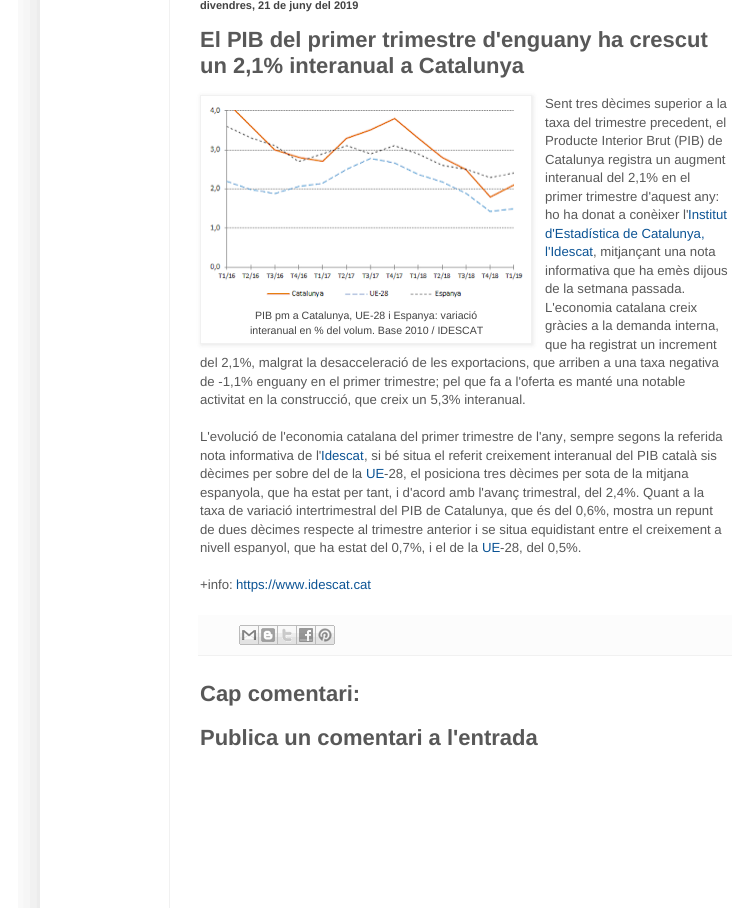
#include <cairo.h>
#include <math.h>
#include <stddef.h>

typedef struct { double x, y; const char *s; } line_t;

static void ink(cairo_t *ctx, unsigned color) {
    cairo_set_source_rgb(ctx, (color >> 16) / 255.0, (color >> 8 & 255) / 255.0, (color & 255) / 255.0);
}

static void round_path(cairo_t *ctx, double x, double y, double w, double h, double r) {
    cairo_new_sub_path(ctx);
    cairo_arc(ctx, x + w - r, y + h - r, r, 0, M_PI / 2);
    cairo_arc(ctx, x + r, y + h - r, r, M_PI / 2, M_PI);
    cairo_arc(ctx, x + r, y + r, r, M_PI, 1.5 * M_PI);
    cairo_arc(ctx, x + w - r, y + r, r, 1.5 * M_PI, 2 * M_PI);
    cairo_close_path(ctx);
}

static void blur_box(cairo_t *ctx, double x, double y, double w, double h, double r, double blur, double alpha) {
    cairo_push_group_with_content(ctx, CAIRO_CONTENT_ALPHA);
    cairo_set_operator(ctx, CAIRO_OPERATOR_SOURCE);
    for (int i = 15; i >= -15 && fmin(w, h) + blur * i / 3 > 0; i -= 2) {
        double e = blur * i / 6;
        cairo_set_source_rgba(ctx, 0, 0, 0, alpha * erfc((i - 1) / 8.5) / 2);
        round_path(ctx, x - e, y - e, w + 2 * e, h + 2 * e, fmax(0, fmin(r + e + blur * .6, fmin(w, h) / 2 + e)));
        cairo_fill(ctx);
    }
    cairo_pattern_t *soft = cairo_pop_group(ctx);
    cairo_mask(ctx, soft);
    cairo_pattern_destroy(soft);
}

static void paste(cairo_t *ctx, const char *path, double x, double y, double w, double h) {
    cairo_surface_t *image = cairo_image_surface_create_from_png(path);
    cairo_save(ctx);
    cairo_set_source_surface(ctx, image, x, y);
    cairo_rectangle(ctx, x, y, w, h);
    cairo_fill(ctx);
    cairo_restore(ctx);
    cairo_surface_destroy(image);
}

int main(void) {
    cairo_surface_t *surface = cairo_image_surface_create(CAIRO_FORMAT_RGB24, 744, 908);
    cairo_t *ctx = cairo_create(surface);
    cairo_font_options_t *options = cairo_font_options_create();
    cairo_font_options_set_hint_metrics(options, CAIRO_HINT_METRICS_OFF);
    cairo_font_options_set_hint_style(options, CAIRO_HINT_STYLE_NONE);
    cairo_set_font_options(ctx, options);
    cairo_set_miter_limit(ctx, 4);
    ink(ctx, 0xFFFFFF);
    cairo_paint(ctx);
    cairo_save(ctx);
    cairo_rectangle(ctx, 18, 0, 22, 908);
    cairo_clip(ctx);
    ink(ctx, 0x000000);
    blur_box(ctx, 40, -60, 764, 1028, 0, 20, 0.15);
    cairo_restore(ctx);
    ink(ctx, 0xF1F1F1);
    cairo_rectangle(ctx, 169, 0, 1, 908);
    cairo_fill(ctx);
    cairo_select_font_face(ctx, "Liberation Sans", CAIRO_FONT_SLANT_NORMAL, CAIRO_FONT_WEIGHT_BOLD);
    cairo_set_font_size(ctx, 11);
    ink(ctx, 0x424242);
    cairo_move_to(ctx, 200, 9);
    cairo_show_text(ctx, "divendres, 21 de juny del 2019");
    cairo_set_font_size(ctx, 22);
    ink(ctx, 0x585858);
    cairo_move_to(ctx, 200, 47);
    cairo_show_text(ctx, "El PIB del primer trimestre d'enguany ha crescut");
    cairo_move_to(ctx, 200, 73);
    cairo_show_text(ctx, "un 2,1% interanual a Catalunya");
    cairo_select_font_face(ctx, "Liberation Sans", CAIRO_FONT_SLANT_NORMAL, CAIRO_FONT_WEIGHT_NORMAL);
    cairo_set_font_size(ctx, 13.2);
    {
        static const line_t items[] = {
            {545, 108, "Sent tres dècimes superior a la"},
            {545, 127, "taxa del trimestre precedent, el"},
            {545, 145, "Producte Interior Brut (PIB) de"},
            {545, 164, "Catalunya registra un augment"},
            {545, 182, "interanual del 2,1% en el"},
            {545, 201, "primer trimestre d'aquest any:"},
            {545, 219, "ho ha donat a conèixer l'"},
        };
        for (size_t i = 0; i < sizeof items / sizeof *items; i++) {
            cairo_move_to(ctx, items[i].x, items[i].y);
            cairo_show_text(ctx, items[i].s);
        }
    }
    ink(ctx, 0x0B5394);
    {
        static const line_t items[] = {
            {688, 219, "Institut"},
            {545, 238, "d'Estadística de Catalunya,"},
            {545, 256, "l'Idescat"},
        };
        for (size_t i = 0; i < sizeof items / sizeof *items; i++) {
            cairo_move_to(ctx, items[i].x, items[i].y);
            cairo_show_text(ctx, items[i].s);
        }
    }
    ink(ctx, 0x585858);
    {
        static const line_t items[] = {
            {593, 256, ", mitjançant una nota"},
            {545, 275, "informativa que ha emès dijous"},
            {545, 293, "de la setmana passada."},
            {545, 312, "L'economia catalana creix"},
        };
        for (size_t i = 0; i < sizeof items / sizeof *items; i++) {
            cairo_move_to(ctx, items[i].x, items[i].y);
            cairo_show_text(ctx, items[i].s);
        }
    }
    cairo_save(ctx);
    cairo_set_fill_rule(ctx, CAIRO_FILL_RULE_EVEN_ODD);
    cairo_new_path(ctx);
    cairo_move_to(ctx, 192, 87);
    cairo_line_to(ctx, 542, 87);
    cairo_line_to(ctx, 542, 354);
    cairo_line_to(ctx, 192, 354);
    cairo_close_path(ctx);
    cairo_move_to(ctx, 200, 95);
    cairo_line_to(ctx, 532, 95);
    cairo_line_to(ctx, 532, 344);
    cairo_line_to(ctx, 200, 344);
    cairo_close_path(ctx);
    cairo_clip(ctx);
    ink(ctx, 0x000000);
    blur_box(ctx, 201, 96, 332, 249, 0, 2.5, 0.1);
    cairo_restore(ctx);
    cairo_rectangle(ctx, 200.5, 95.5, 331, 248);
    ink(ctx, 0xF1F1F1);
    cairo_set_line_width(ctx, 1);
    cairo_stroke(ctx);
    paste(ctx, "media/1.png", 209, 107, 314, 191);
    cairo_set_font_size(ctx, 10.6);
    ink(ctx, 0x424242);
    cairo_move_to(ctx, 255, 319);
    cairo_show_text(ctx, "PIB pm a Catalunya, UE-28 i Espanya: variació");
    cairo_move_to(ctx, 250, 334);
    cairo_show_text(ctx, "interanual en % del volum. Base 2010 / IDESCAT");
    cairo_set_font_size(ctx, 13.2);
    ink(ctx, 0x585858);
    {
        static const line_t items[] = {
            {545, 330, "gràcies a la demanda interna,"},
            {545, 349, "que ha registrat un increment"},
            {200, 367, "del 2,1%, malgrat la desacceleració de les exportacions, que arriben a una taxa negativa"},
            {200, 386, "de -1,1% enguany en el primer trimestre; pel que fa a l'oferta es manté una notable"},
            {200, 404, "activitat en la construcció, que creix un 5,3% interanual."},
            {200, 441, "L'evolució de l'economia catalana del primer trimestre de l'any, sempre segons la referida"},
            {200, 460, "nota informativa de l'"},
        };
        for (size_t i = 0; i < sizeof items / sizeof *items; i++) {
            cairo_move_to(ctx, items[i].x, items[i].y);
            cairo_show_text(ctx, items[i].s);
        }
    }
    ink(ctx, 0x0B5394);
    cairo_move_to(ctx, 321, 460);
    cairo_show_text(ctx, "Idescat");
    ink(ctx, 0x585858);
    cairo_move_to(ctx, 364, 460);
    cairo_show_text(ctx, ", si bé situa el referit creixement interanual del PIB català sis");
    cairo_move_to(ctx, 200, 478);
    cairo_show_text(ctx, "dècimes per sobre del de la");
    ink(ctx, 0x0B5394);
    cairo_move_to(ctx, 366, 478);
    cairo_show_text(ctx, "UE");
    ink(ctx, 0x585858);
    {
        static const line_t items[] = {
            {384, 478, "-28, el posiciona tres dècimes per sota de la mitjana"},
            {200, 497, "espanyola, que ha estat per tant, i d'acord amb l'avanç trimestral, del 2,4%. Quant a la"},
            {200, 515, "taxa de variació intertrimestral del PIB de Catalunya, que és del 0,6%, mostra un repunt"},
            {200, 534, "de dues dècimes respecte al trimestre anterior i se situa equidistant entre el creixement a"},
            {200, 552, "nivell espanyol, que ha estat del 0,7%, i el de la"},
        };
        for (size_t i = 0; i < sizeof items / sizeof *items; i++) {
            cairo_move_to(ctx, items[i].x, items[i].y);
            cairo_show_text(ctx, items[i].s);
        }
    }
    ink(ctx, 0x0B5394);
    cairo_move_to(ctx, 482, 552);
    cairo_show_text(ctx, "UE");
    ink(ctx, 0x585858);
    cairo_move_to(ctx, 500, 552);
    cairo_show_text(ctx, "-28, del 0,5%.");
    cairo_move_to(ctx, 200, 589);
    cairo_show_text(ctx, "+info:");
    ink(ctx, 0x0B5394);
    cairo_move_to(ctx, 236, 589);
    cairo_show_text(ctx, "https://www.idescat.cat");
    ink(ctx, 0xFCFCFC);
    cairo_rectangle(ctx, 198, 615, 534, 40);
    cairo_fill(ctx);
    ink(ctx, 0xF1F1F1);
    cairo_rectangle(ctx, 198, 655, 534, 1);
    cairo_fill(ctx);
    paste(ctx, "media/2.png", 239, 625, 20, 20);
    paste(ctx, "media/3.png", 259, 625, 19, 20);
    paste(ctx, "media/4.png", 278, 625, 19, 20);
    paste(ctx, "media/5.png", 297, 625, 19, 20);
    paste(ctx, "media/6.png", 316, 625, 19, 20);
    cairo_select_font_face(ctx, "Liberation Sans", CAIRO_FONT_SLANT_NORMAL, CAIRO_FONT_WEIGHT_BOLD);
    cairo_set_font_size(ctx, 22);
    ink(ctx, 0x585858);
    cairo_move_to(ctx, 200, 701);
    cairo_show_text(ctx, "Cap comentari:");
    cairo_move_to(ctx, 200, 745);
    cairo_show_text(ctx, "Publica un comentari a l'entrada");
    cairo_surface_write_to_png(surface, "image.png");
    cairo_font_options_destroy(options);
    cairo_destroy(ctx);
    cairo_surface_destroy(surface);
    return 0;
}
